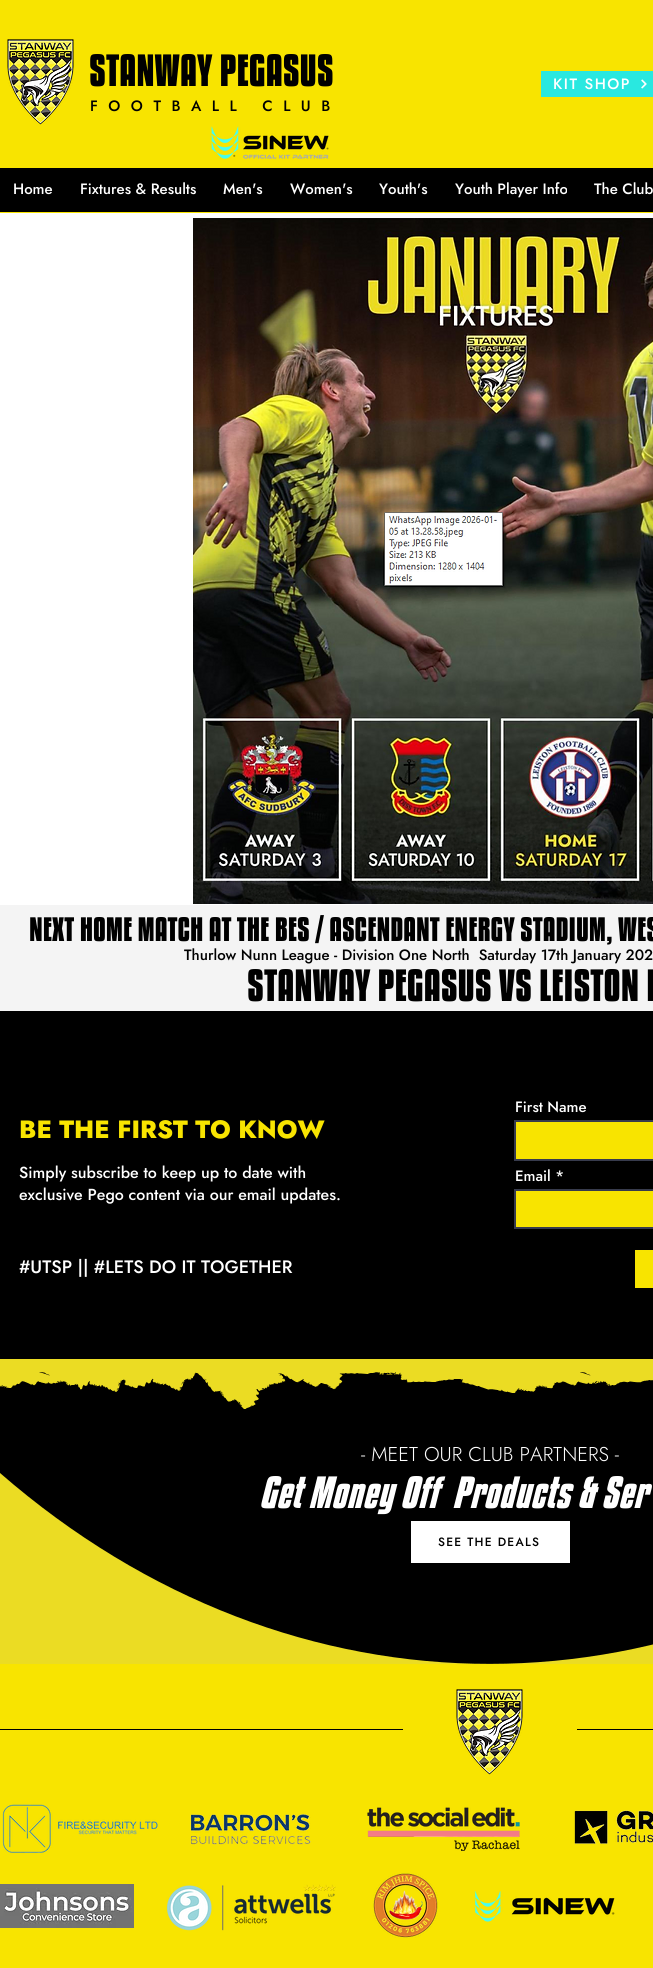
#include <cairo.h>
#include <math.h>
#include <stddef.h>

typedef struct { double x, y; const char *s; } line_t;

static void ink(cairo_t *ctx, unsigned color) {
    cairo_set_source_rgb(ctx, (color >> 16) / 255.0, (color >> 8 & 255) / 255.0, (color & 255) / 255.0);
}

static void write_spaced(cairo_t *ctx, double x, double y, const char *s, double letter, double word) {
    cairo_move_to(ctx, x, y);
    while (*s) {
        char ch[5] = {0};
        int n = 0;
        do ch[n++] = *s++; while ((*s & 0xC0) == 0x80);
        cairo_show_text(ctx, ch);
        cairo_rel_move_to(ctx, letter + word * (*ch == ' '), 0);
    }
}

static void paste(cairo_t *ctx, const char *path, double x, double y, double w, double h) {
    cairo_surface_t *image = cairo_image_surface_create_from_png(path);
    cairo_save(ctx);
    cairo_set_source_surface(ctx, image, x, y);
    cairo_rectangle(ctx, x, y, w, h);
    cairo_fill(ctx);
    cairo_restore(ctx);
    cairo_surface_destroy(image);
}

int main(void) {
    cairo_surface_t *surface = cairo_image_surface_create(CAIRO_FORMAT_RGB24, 653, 1968);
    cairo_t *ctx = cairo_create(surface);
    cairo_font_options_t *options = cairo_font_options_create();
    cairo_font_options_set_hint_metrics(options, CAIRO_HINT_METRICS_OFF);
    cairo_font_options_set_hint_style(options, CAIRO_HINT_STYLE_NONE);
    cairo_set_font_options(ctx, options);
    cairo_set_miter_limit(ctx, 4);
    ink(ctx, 0xFFFFFF);
    cairo_paint(ctx);
    ink(ctx, 0xF8E400);
    cairo_rectangle(ctx, 0, 0, 653, 213);
    cairo_fill(ctx);
    paste(ctx, "media/1.png", 7, 39, 67, 86);
    cairo_select_font_face(ctx, "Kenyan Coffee", CAIRO_FONT_SLANT_NORMAL, CAIRO_FONT_WEIGHT_BOLD);
    cairo_set_font_size(ctx, 40);
    ink(ctx, 0x000000);
    cairo_move_to(ctx, 89, 86);
    cairo_show_text(ctx, "STANWAY PEGASUS");
    ink(ctx, 0x29E8E0);
    cairo_rectangle(ctx, 541, 71, 112, 26);
    cairo_fill(ctx);
    cairo_select_font_face(ctx, "Jost Medium", CAIRO_FONT_SLANT_NORMAL, CAIRO_FONT_WEIGHT_NORMAL);
    cairo_set_font_size(ctx, 15);
    ink(ctx, 0xFFFFFF);
    write_spaced(ctx, 553, 89, "KIT SHOP", 1.5, 0);
    paste(ctx, "media/2.png", 641, 79, 6, 10);
    ink(ctx, 0x000000);
    write_spaced(ctx, 90, 111, "FOOTBALL CLUB", 10.5, 0);
    paste(ctx, "media/3.png", 211, 126, 118, 33);
    cairo_rectangle(ctx, 0, 168, 653, 44);
    cairo_fill(ctx);
    ink(ctx, 0xFFFFFF);
    {
        static const line_t items[] = {
            {13, 194, "Home"},
            {80, 194, "Fixtures & Results"},
            {223, 194, "Men's"},
            {290, 194, "Women's"},
            {379, 194, "Youth's"},
            {455, 194, "Youth Player Info"},
            {594, 194, "The Club"},
        };
        for (size_t i = 0; i < sizeof items / sizeof *items; i++) {
            cairo_move_to(ctx, items[i].x, items[i].y);
            cairo_show_text(ctx, items[i].s);
        }
    }
    paste(ctx, "media/4.png", 193, 218, 460, 686);
    ink(ctx, 0xF4F4F4);
    cairo_rectangle(ctx, 0, 905, 653, 106);
    cairo_fill(ctx);
    cairo_select_font_face(ctx, "Kenyan Coffee", CAIRO_FONT_SLANT_NORMAL, CAIRO_FONT_WEIGHT_BOLD);
    cairo_set_font_size(ctx, 30);
    ink(ctx, 0x000000);
    cairo_move_to(ctx, 29, 941);
    cairo_show_text(ctx, "NEXT HOME MATCH AT THE BES / ASCENDANT ENERGY STADIUM, WES");
    cairo_select_font_face(ctx, "Jost Medium", CAIRO_FONT_SLANT_NORMAL, CAIRO_FONT_WEIGHT_NORMAL);
    cairo_set_font_size(ctx, 15);
    cairo_move_to(ctx, 184, 960);
    cairo_show_text(ctx, "Thurlow Nunn League - Division One North  Saturday 17th January 202");
    cairo_select_font_face(ctx, "Kenyan Coffee", CAIRO_FONT_SLANT_NORMAL, CAIRO_FONT_WEIGHT_BOLD);
    cairo_set_font_size(ctx, 40);
    cairo_move_to(ctx, 247, 1001);
    cairo_show_text(ctx, "STANWAY PEGASUS VS LEISTON F");
    cairo_rectangle(ctx, 0, 1011, 653, 348);
    cairo_fill(ctx);
    cairo_select_font_face(ctx, "Jost Medium", CAIRO_FONT_SLANT_NORMAL, CAIRO_FONT_WEIGHT_NORMAL);
    cairo_set_font_size(ctx, 15);
    ink(ctx, 0xFFFFFF);
    cairo_move_to(ctx, 515, 1112);
    cairo_show_text(ctx, "First Name");
    ink(ctx, 0xF8E400);
    cairo_rectangle(ctx, 515, 1121, 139, 39);
    cairo_fill_preserve(ctx);
    ink(ctx, 0x373B4D);
    cairo_stroke(ctx);
    cairo_select_font_face(ctx, "Jost Black", CAIRO_FONT_SLANT_NORMAL, CAIRO_FONT_WEIGHT_NORMAL);
    cairo_set_font_size(ctx, 25);
    ink(ctx, 0xF8E400);
    cairo_move_to(ctx, 19, 1138);
    cairo_show_text(ctx, "BE THE FIRST TO KNOW");
    cairo_select_font_face(ctx, "Jost Medium", CAIRO_FONT_SLANT_NORMAL, CAIRO_FONT_WEIGHT_NORMAL);
    cairo_set_font_size(ctx, 16);
    ink(ctx, 0xFFFFFF);
    cairo_move_to(ctx, 19, 1178);
    cairo_show_text(ctx, "Simply subscribe to keep up to date with");
    cairo_move_to(ctx, 19, 1200);
    cairo_show_text(ctx, "exclusive Pego content via our email updates.");
    cairo_set_font_size(ctx, 15);
    cairo_move_to(ctx, 515, 1181);
    cairo_show_text(ctx, "Email *");
    ink(ctx, 0xF8E400);
    cairo_rectangle(ctx, 515, 1190, 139, 38);
    cairo_fill_preserve(ctx);
    ink(ctx, 0x373B4D);
    cairo_stroke(ctx);
    cairo_set_font_size(ctx, 18);
    ink(ctx, 0xFFFFFF);
    cairo_move_to(ctx, 19, 1273);
    cairo_show_text(ctx, "#UTSP || #LETS DO IT TOGETHER");
    ink(ctx, 0xF8E400);
    cairo_rectangle(ctx, 635, 1250, 18, 38);
    cairo_fill(ctx);
    ink(ctx, 0x000000);
    cairo_rectangle(ctx, 0, 1372, 653, 292);
    cairo_fill(ctx);
    paste(ctx, "media/5.png", 0, 1359, 653, 50);
    cairo_select_font_face(ctx, "Jost Light", CAIRO_FONT_SLANT_NORMAL, CAIRO_FONT_WEIGHT_NORMAL);
    cairo_set_font_size(ctx, 20);
    ink(ctx, 0xFFFFFF);
    cairo_move_to(ctx, 361, 1461);
    cairo_show_text(ctx, "- MEET OUR CLUB PARTNERS -");
    ink(ctx, 0xEBDC23);
    cairo_set_fill_rule(ctx, CAIRO_FILL_RULE_EVEN_ODD);
    cairo_new_path(ctx);
    cairo_move_to(ctx, 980, 1473);
    cairo_curve_to(ctx, 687, 1727, 293, 1728, 0, 1473);
    cairo_line_to(ctx, 0, 1464);
    cairo_line_to(ctx, 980, 1464);
    cairo_close_path(ctx);
    cairo_move_to(ctx, 0, 1665);
    cairo_line_to(ctx, 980, 1665);
    cairo_line_to(ctx, 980, 1464);
    cairo_line_to(ctx, 0, 1464);
    cairo_close_path(ctx);
    cairo_fill(ctx);
    cairo_select_font_face(ctx, "Kenyan Coffee", CAIRO_FONT_SLANT_ITALIC, CAIRO_FONT_WEIGHT_BOLD);
    cairo_set_font_size(ctx, 40);
    ink(ctx, 0xFFFFFF);
    cairo_move_to(ctx, 259, 1508);
    cairo_show_text(ctx, "Get Money Off  Products & Ser");
    cairo_rectangle(ctx, 411, 1521, 159, 42);
    cairo_fill(ctx);
    cairo_select_font_face(ctx, "Jost Medium", CAIRO_FONT_SLANT_NORMAL, CAIRO_FONT_WEIGHT_NORMAL);
    cairo_set_font_size(ctx, 12);
    ink(ctx, 0x000000);
    write_spaced(ctx, 438, 1546, "SEE THE DEALS", 1.25, 0);
    ink(ctx, 0xF8E400);
    cairo_rectangle(ctx, 0, 1664, 653, 304);
    cairo_fill(ctx);
    ink(ctx, 0x000000);
    cairo_rectangle(ctx, 0, 1729, 403, 1);
    cairo_fill(ctx);
    paste(ctx, "media/1.png", 456, 1689, 67, 86);
    cairo_rectangle(ctx, 577, 1729, 76, 1);
    cairo_fill(ctx);
    paste(ctx, "media/6.png", 2, 1804, 156, 49);
    paste(ctx, "media/7.png", 190, 1814, 121, 31);
    paste(ctx, "media/8.png", 367, 1807, 153, 44);
    paste(ctx, "media/9.png", 574, 1810, 79, 34);
    paste(ctx, "media/10.png", 0, 1884, 134, 44);
    paste(ctx, "media/11.png", 166, 1884, 170, 47);
    paste(ctx, "media/12.png", 373, 1873, 65, 65);
    paste(ctx, "media/13.png", 474, 1891, 141, 31);
    cairo_surface_write_to_png(surface, "image.png");
    cairo_font_options_destroy(options);
    cairo_destroy(ctx);
    cairo_surface_destroy(surface);
    return 0;
}
